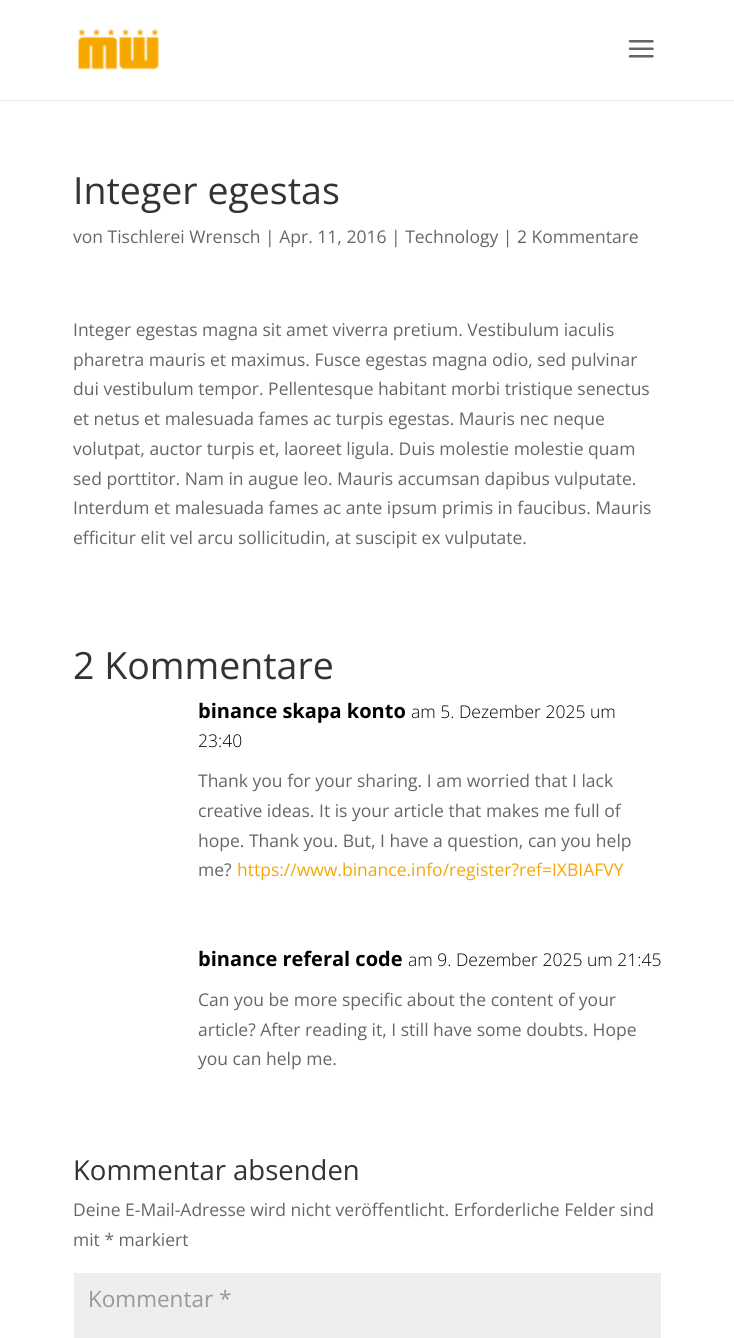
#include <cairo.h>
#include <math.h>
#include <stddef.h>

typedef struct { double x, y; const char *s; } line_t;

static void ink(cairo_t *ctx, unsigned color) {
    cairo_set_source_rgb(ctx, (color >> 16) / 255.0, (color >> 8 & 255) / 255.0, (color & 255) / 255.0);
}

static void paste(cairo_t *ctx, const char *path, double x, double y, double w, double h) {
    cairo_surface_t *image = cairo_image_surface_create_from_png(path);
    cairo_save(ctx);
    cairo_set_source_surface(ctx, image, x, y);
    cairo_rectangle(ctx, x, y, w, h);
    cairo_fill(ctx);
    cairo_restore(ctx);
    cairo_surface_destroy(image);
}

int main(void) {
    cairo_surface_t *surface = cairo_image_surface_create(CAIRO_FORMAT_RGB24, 734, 1338);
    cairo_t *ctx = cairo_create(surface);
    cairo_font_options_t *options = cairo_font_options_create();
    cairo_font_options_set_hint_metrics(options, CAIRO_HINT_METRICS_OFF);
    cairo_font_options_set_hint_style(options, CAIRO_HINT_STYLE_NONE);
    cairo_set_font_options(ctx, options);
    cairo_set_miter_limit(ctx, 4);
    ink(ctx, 0xFFFFFF);
    cairo_paint(ctx);
    ink(ctx, 0xE6E6E6);
    cairo_rectangle(ctx, 0, 100, 734, 1);
    cairo_fill(ctx);
    paste(ctx, "media/1.png", 78, 28, 82, 42);
    paste(ctx, "media/2.png", 628, 40, 26, 18);
    cairo_select_font_face(ctx, "Open Sans", CAIRO_FONT_SLANT_NORMAL, CAIRO_FONT_WEIGHT_NORMAL);
    cairo_set_font_size(ctx, 37.5);
    ink(ctx, 0x333333);
    cairo_move_to(ctx, 73, 204);
    cairo_show_text(ctx, "Integer egestas");
    cairo_set_font_size(ctx, 17.5);
    ink(ctx, 0x666666);
    {
        static const line_t items[] = {
            {73, 243, "von Tischlerei Wrensch | Apr. 11, 2016 | Technology | 2 Kommentare"},
            {73, 336, "Integer egestas magna sit amet viverra pretium. Vestibulum iaculis"},
            {73, 366, "pharetra mauris et maximus. Fusce egestas magna odio, sed pulvinar"},
            {73, 395, "dui vestibulum tempor. Pellentesque habitant morbi tristique senectus"},
            {73, 425, "et netus et malesuada fames ac turpis egestas. Mauris nec neque"},
            {73, 455, "volutpat, auctor turpis et, laoreet ligula. Duis molestie molestie quam"},
            {73, 485, "sed porttitor. Nam in augue leo. Mauris accumsan dapibus vulputate."},
            {73, 514, "Interdum et malesuada fames ac ante ipsum primis in faucibus. Mauris"},
            {73, 544, "efficitur elit vel arcu sollicitudin, at suscipit ex vulputate."},
        };
        for (size_t i = 0; i < sizeof items / sizeof *items; i++) {
            cairo_move_to(ctx, items[i].x, items[i].y);
            cairo_show_text(ctx, items[i].s);
        }
    }
    cairo_set_font_size(ctx, 37.5);
    ink(ctx, 0x333333);
    cairo_move_to(ctx, 73, 679);
    cairo_show_text(ctx, "2 Kommentare");
    cairo_select_font_face(ctx, "Open Sans", CAIRO_FONT_SLANT_NORMAL, CAIRO_FONT_WEIGHT_BOLD);
    cairo_set_font_size(ctx, 20);
    ink(ctx, 0x000000);
    cairo_move_to(ctx, 198, 718);
    cairo_show_text(ctx, "binance skapa konto");
    cairo_select_font_face(ctx, "Open Sans Light", CAIRO_FONT_SLANT_NORMAL, CAIRO_FONT_WEIGHT_NORMAL);
    cairo_set_font_size(ctx, 17.5);
    cairo_move_to(ctx, 411, 718);
    cairo_show_text(ctx, "am 5. Dezember 2025 um");
    cairo_move_to(ctx, 198, 747);
    cairo_show_text(ctx, "23:40");
    cairo_select_font_face(ctx, "Open Sans", CAIRO_FONT_SLANT_NORMAL, CAIRO_FONT_WEIGHT_NORMAL);
    ink(ctx, 0x666666);
    {
        static const line_t items[] = {
            {198, 787, "Thank you for your sharing. I am worried that I lack"},
            {198, 817, "creative ideas. It is your article that makes me full of"},
            {198, 847, "hope. Thank you. But, I have a question, can you help"},
            {198, 876, "me?"},
        };
        for (size_t i = 0; i < sizeof items / sizeof *items; i++) {
            cairo_move_to(ctx, items[i].x, items[i].y);
            cairo_show_text(ctx, items[i].s);
        }
    }
    ink(ctx, 0xF7A700);
    cairo_move_to(ctx, 237, 876);
    cairo_show_text(ctx, "https://www.binance.info/register?ref=IXBIAFVY");
    cairo_select_font_face(ctx, "Open Sans", CAIRO_FONT_SLANT_NORMAL, CAIRO_FONT_WEIGHT_BOLD);
    cairo_set_font_size(ctx, 20);
    ink(ctx, 0x000000);
    cairo_move_to(ctx, 198, 966);
    cairo_show_text(ctx, "binance referal code");
    cairo_select_font_face(ctx, "Open Sans Light", CAIRO_FONT_SLANT_NORMAL, CAIRO_FONT_WEIGHT_NORMAL);
    cairo_set_font_size(ctx, 17.5);
    cairo_move_to(ctx, 408, 966);
    cairo_show_text(ctx, "am 9. Dezember 2025 um 21:45");
    cairo_select_font_face(ctx, "Open Sans", CAIRO_FONT_SLANT_NORMAL, CAIRO_FONT_WEIGHT_NORMAL);
    ink(ctx, 0x666666);
    {
        static const line_t items[] = {
            {198, 1006, "Can you be more specific about the content of your"},
            {198, 1036, "article? After reading it, I still have some doubts. Hope"},
            {198, 1065, "you can help me."},
        };
        for (size_t i = 0; i < sizeof items / sizeof *items; i++) {
            cairo_move_to(ctx, items[i].x, items[i].y);
            cairo_show_text(ctx, items[i].s);
        }
    }
    cairo_set_font_size(ctx, 27.5);
    ink(ctx, 0x333333);
    cairo_move_to(ctx, 73, 1180);
    cairo_show_text(ctx, "Kommentar absenden");
    cairo_set_font_size(ctx, 17.5);
    ink(ctx, 0x666666);
    cairo_move_to(ctx, 73, 1216);
    cairo_show_text(ctx, "Deine E-Mail-Adresse wird nicht veröffentlicht. Erforderliche Felder sind");
    cairo_move_to(ctx, 73, 1246);
    cairo_show_text(ctx, "mit * markiert");
    ink(ctx, 0xEEEEEE);
    cairo_rectangle(ctx, 74, 1273, 587, 65);
    cairo_fill(ctx);
    cairo_set_font_size(ctx, 22.5);
    ink(ctx, 0x999999);
    cairo_move_to(ctx, 88, 1307);
    cairo_show_text(ctx, "Kommentar *");
    cairo_surface_write_to_png(surface, "image.png");
    cairo_font_options_destroy(options);
    cairo_destroy(ctx);
    cairo_surface_destroy(surface);
    return 0;
}
